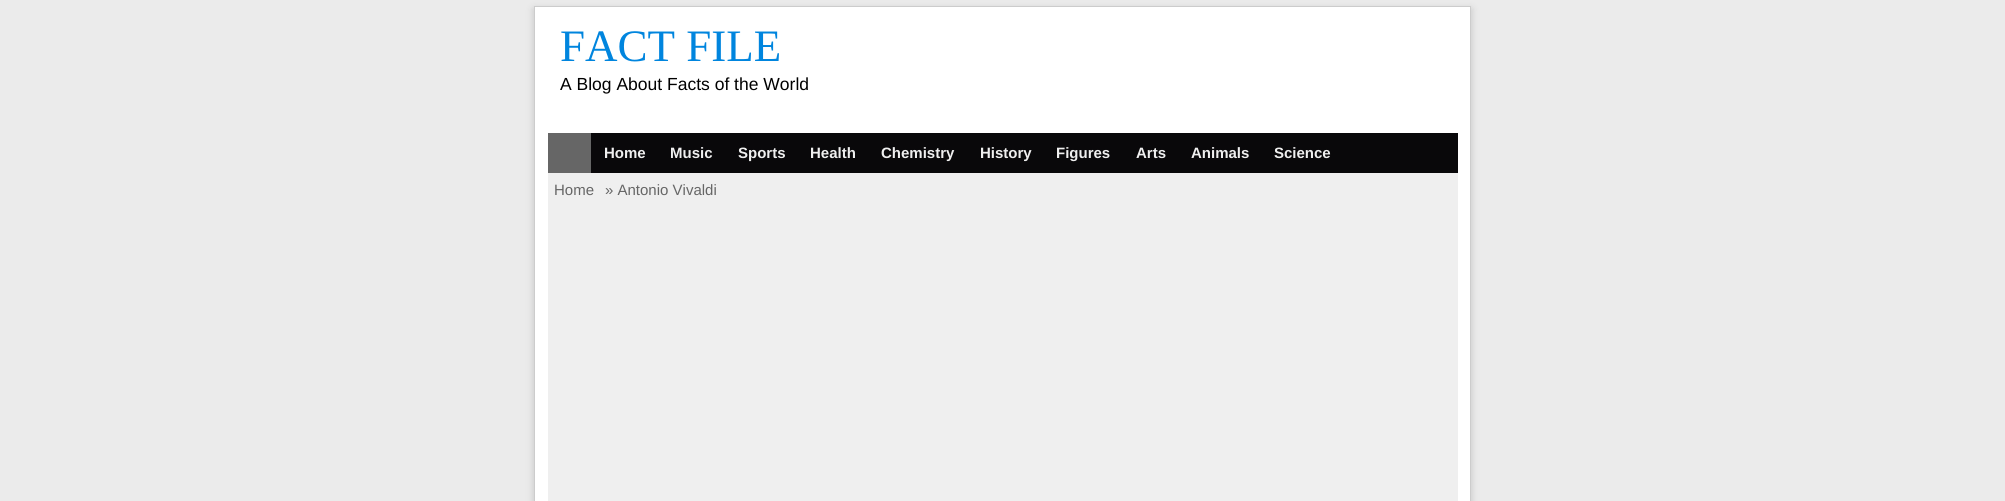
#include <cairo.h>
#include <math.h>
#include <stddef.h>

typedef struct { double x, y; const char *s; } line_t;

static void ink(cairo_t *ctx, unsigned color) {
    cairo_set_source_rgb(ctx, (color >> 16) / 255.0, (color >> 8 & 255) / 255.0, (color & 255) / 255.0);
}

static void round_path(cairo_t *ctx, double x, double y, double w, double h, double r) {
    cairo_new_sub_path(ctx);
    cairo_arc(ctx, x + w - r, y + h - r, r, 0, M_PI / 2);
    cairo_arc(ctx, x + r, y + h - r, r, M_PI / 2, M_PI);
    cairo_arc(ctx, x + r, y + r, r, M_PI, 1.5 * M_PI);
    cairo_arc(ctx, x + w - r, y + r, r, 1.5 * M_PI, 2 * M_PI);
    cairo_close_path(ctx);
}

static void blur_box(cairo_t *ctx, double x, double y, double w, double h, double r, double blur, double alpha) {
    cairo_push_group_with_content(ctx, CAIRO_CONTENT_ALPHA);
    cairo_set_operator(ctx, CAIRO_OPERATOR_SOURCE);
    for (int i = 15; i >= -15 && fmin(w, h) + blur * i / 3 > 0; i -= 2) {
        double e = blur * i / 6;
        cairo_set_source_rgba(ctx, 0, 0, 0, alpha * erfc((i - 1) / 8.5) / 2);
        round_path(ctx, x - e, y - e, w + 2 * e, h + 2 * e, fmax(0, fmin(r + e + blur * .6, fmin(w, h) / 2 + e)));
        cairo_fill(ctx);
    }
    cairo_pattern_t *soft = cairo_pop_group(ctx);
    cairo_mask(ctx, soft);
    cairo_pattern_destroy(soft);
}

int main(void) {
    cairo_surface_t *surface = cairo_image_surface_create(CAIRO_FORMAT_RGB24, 2005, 501);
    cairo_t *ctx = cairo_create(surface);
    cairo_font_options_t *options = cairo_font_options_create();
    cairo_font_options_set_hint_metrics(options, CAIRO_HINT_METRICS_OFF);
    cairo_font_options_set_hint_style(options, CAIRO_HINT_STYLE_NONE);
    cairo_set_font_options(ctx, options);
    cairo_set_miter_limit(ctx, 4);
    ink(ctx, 0xEBEBEB);
    cairo_paint(ctx);
    ink(ctx, 0x646464);
    blur_box(ctx, 534, 9, 937, 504, 0, 4, 0.3);
    ink(ctx, 0xFFFFFF);
    cairo_rectangle(ctx, 534.5, 6.5, 936, 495);
    cairo_fill_preserve(ctx);
    ink(ctx, 0xCCCCCC);
    cairo_set_line_width(ctx, 1);
    cairo_stroke(ctx);
    cairo_select_font_face(ctx, "Liberation Serif", CAIRO_FONT_SLANT_NORMAL, CAIRO_FONT_WEIGHT_NORMAL);
    cairo_set_font_size(ctx, 45);
    ink(ctx, 0x0085DE);
    cairo_move_to(ctx, 560, 61);
    cairo_show_text(ctx, "FACT FILE");
    cairo_select_font_face(ctx, "Liberation Sans", CAIRO_FONT_SLANT_NORMAL, CAIRO_FONT_WEIGHT_NORMAL);
    cairo_set_font_size(ctx, 17.5);
    ink(ctx, 0x000000);
    cairo_move_to(ctx, 560, 90);
    cairo_show_text(ctx, "A Blog About Facts of the World");
    ink(ctx, 0x09080A);
    cairo_rectangle(ctx, 591, 133, 867, 40);
    cairo_fill(ctx);
    ink(ctx, 0x666666);
    cairo_rectangle(ctx, 548, 133, 43, 40);
    cairo_fill(ctx);
    cairo_select_font_face(ctx, "Liberation Sans", CAIRO_FONT_SLANT_NORMAL, CAIRO_FONT_WEIGHT_BOLD);
    cairo_set_font_size(ctx, 15);
    ink(ctx, 0xEFEFEF);
    {
        static const line_t items[] = {
            {604, 158, "Home"},
            {670, 158, "Music"},
            {738, 158, "Sports"},
            {810, 158, "Health"},
            {881, 158, "Chemistry"},
            {980, 158, "History"},
            {1056, 158, "Figures"},
            {1136, 158, "Arts"},
            {1191, 158, "Animals"},
            {1274, 158, "Science"},
        };
        for (size_t i = 0; i < sizeof items / sizeof *items; i++) {
            cairo_move_to(ctx, items[i].x, items[i].y);
            cairo_show_text(ctx, items[i].s);
        }
    }
    cairo_rectangle(ctx, 548, 173, 910, 328);
    cairo_fill(ctx);
    cairo_select_font_face(ctx, "Liberation Sans", CAIRO_FONT_SLANT_NORMAL, CAIRO_FONT_WEIGHT_NORMAL);
    ink(ctx, 0x666666);
    cairo_move_to(ctx, 554, 195);
    cairo_show_text(ctx, "Home");
    cairo_move_to(ctx, 605, 195);
    cairo_show_text(ctx, "» Antonio Vivaldi");
    cairo_surface_write_to_png(surface, "image.png");
    cairo_font_options_destroy(options);
    cairo_destroy(ctx);
    cairo_surface_destroy(surface);
    return 0;
}
